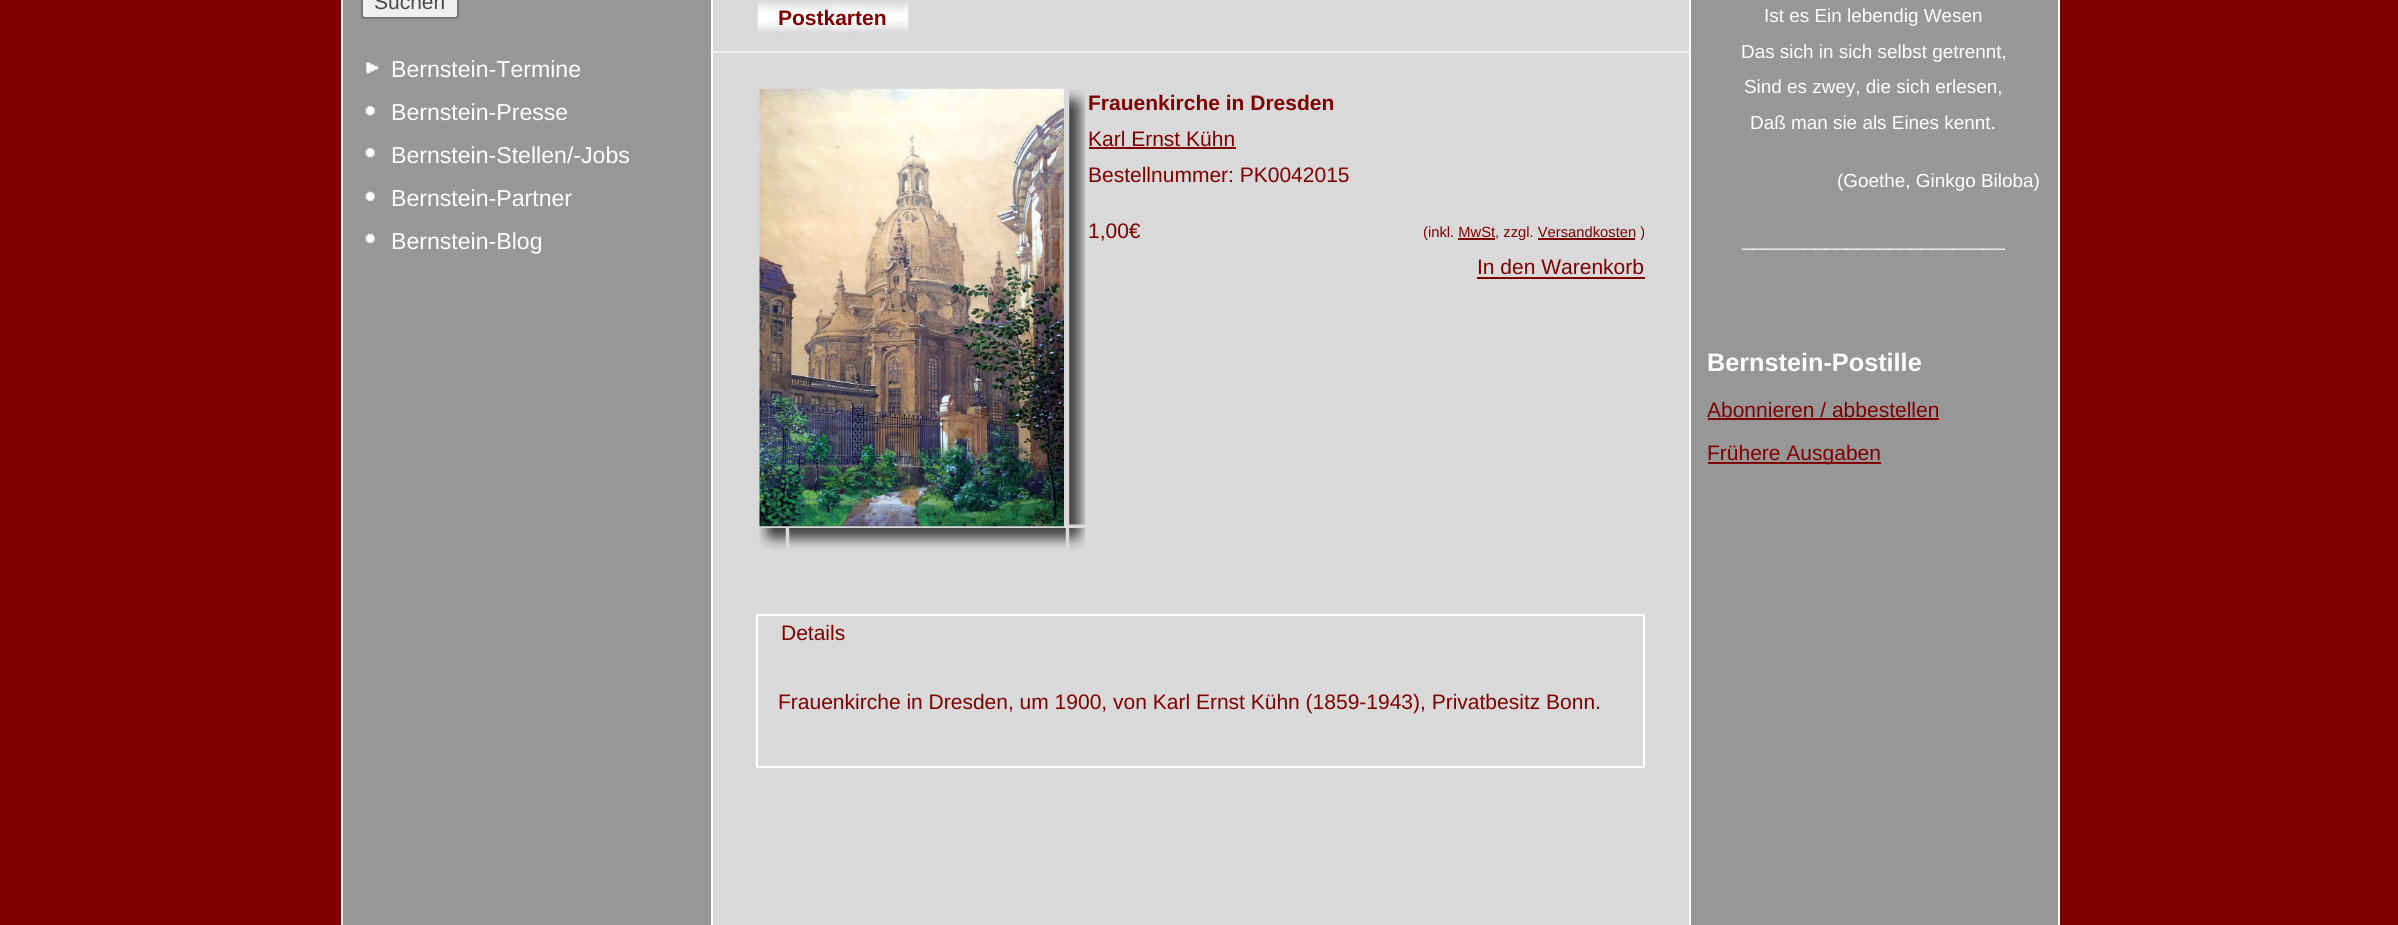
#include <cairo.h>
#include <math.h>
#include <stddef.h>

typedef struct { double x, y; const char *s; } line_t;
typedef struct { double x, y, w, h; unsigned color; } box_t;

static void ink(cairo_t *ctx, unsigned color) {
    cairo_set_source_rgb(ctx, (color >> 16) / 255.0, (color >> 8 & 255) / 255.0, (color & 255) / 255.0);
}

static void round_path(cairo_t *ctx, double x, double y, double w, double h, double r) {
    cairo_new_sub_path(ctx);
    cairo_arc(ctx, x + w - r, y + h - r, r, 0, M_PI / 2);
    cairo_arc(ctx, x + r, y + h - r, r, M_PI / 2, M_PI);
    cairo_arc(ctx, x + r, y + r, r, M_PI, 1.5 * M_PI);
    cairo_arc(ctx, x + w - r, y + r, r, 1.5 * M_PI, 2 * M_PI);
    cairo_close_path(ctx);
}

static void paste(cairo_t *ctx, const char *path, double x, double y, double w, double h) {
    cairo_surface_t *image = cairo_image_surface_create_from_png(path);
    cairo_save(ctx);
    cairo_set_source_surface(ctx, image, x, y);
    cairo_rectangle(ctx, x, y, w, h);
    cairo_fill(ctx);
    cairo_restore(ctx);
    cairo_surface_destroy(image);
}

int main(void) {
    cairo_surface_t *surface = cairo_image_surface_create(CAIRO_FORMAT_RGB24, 2398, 925);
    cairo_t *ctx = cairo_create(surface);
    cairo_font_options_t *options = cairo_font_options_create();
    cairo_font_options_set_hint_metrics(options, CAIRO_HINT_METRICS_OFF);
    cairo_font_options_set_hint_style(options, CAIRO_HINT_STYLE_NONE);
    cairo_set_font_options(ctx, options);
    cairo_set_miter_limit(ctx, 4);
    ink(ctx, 0x800000);
    cairo_paint(ctx);
    {
        static const box_t items[] = {
            {343, 0, 1715, 925, 0x979797},
            {2058, 0, 2, 925, 0xFFFFFF},
            {341, 0, 2, 925, 0xFFFFFF},
        };
        for (size_t i = 0; i < sizeof items / sizeof *items; i++) {
            ink(ctx, items[i].color);
            cairo_rectangle(ctx, items[i].x, items[i].y, items[i].w, items[i].h);
            cairo_fill(ctx);
        }
    }
    ink(ctx, 0xEFEFEF);
    round_path(ctx, 362, -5, 96, 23, 3);
    cairo_fill_preserve(ctx);
    ink(ctx, 0x767676);
    cairo_stroke(ctx);
    cairo_select_font_face(ctx, "Liberation Sans", CAIRO_FONT_SLANT_NORMAL, CAIRO_FONT_WEIGHT_NORMAL);
    cairo_set_font_size(ctx, 21);
    ink(ctx, 0x494949);
    cairo_move_to(ctx, 374, 9);
    cairo_show_text(ctx, "Suchen");
    paste(ctx, "media/1.png", 365, 62, 14, 12);
    cairo_set_font_size(ctx, 23.1);
    ink(ctx, 0xFFFFFF);
    cairo_move_to(ctx, 391, 77);
    cairo_show_text(ctx, "Bernstein-Termine");
    paste(ctx, "media/2.png", 365, 105, 10, 11);
    cairo_move_to(ctx, 391, 120);
    cairo_show_text(ctx, "Bernstein-Presse");
    paste(ctx, "media/2.png", 365, 147, 10, 11);
    cairo_move_to(ctx, 391, 163);
    cairo_show_text(ctx, "Bernstein-Stellen/-Jobs");
    paste(ctx, "media/3.png", 365, 191, 10, 11);
    cairo_move_to(ctx, 391, 206);
    cairo_show_text(ctx, "Bernstein-Partner");
    paste(ctx, "media/3.png", 365, 233, 10, 11);
    cairo_move_to(ctx, 391, 249);
    cairo_show_text(ctx, "Bernstein-Blog");
    ink(ctx, 0xD9D9D9);
    cairo_rectangle(ctx, 712, -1, 978, 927);
    cairo_fill_preserve(ctx);
    ink(ctx, 0xFFFFFF);
    cairo_stroke(ctx);
    ink(ctx, 0xE9EFF3);
    cairo_rectangle(ctx, 711, 51, 980, 2);
    cairo_fill(ctx);
    paste(ctx, "media/4.png", 757, 1, 152, 32);
    cairo_select_font_face(ctx, "Liberation Sans", CAIRO_FONT_SLANT_NORMAL, CAIRO_FONT_WEIGHT_BOLD);
    cairo_set_font_size(ctx, 21);
    ink(ctx, 0x800000);
    cairo_move_to(ctx, 778, 25);
    cairo_show_text(ctx, "Postkarten");
    paste(ctx, "media/5.png", 759, 88, 305, 439);
    paste(ctx, "media/6.png", 1069, 89, 16, 436);
    paste(ctx, "media/7.png", 759, 528, 27, 22);
    paste(ctx, "media/8.png", 789, 528, 277, 21);
    paste(ctx, "media/9.png", 1069, 528, 16, 22);
    cairo_move_to(ctx, 1088, 110);
    cairo_show_text(ctx, "Frauenkirche in Dresden");
    cairo_select_font_face(ctx, "Liberation Sans", CAIRO_FONT_SLANT_NORMAL, CAIRO_FONT_WEIGHT_NORMAL);
    cairo_move_to(ctx, 1088, 146);
    cairo_show_text(ctx, "Karl Ernst Kühn");
    cairo_rectangle(ctx, 1089, 147, 147, 2);
    cairo_fill(ctx);
    cairo_move_to(ctx, 1088, 182);
    cairo_show_text(ctx, "Bestellnummer: PK0042015");
    cairo_move_to(ctx, 1088, 238);
    cairo_show_text(ctx, "1,00€");
    cairo_set_font_size(ctx, 14.75);
    cairo_move_to(ctx, 1423, 237);
    cairo_show_text(ctx, "(inkl. MwSt, zzgl. Versandkosten )");
    cairo_rectangle(ctx, 1458, 238, 37, 2);
    cairo_fill(ctx);
    cairo_rectangle(ctx, 1538, 238, 97, 2);
    cairo_fill(ctx);
    cairo_set_font_size(ctx, 21);
    cairo_move_to(ctx, 1477, 274);
    cairo_show_text(ctx, "In den Warenkorb");
    cairo_rectangle(ctx, 1477, 277, 168, 2);
    cairo_fill(ctx);
    cairo_rectangle(ctx, 757, 615, 887, 152);
    ink(ctx, 0xFFFFFF);
    cairo_stroke(ctx);
    ink(ctx, 0x800000);
    cairo_move_to(ctx, 781, 640);
    cairo_show_text(ctx, "Details");
    cairo_move_to(ctx, 778, 709);
    cairo_show_text(ctx, "Frauenkirche in Dresden, um 1900, von Karl Ernst Kühn (1859-1943), Privatbesitz Bonn.");
    cairo_set_font_size(ctx, 18.9);
    ink(ctx, 0xFFFFFF);
    {
        static const line_t items[] = {
            {1764, 22, "Ist es Ein lebendig Wesen"},
            {1741, 58, "Das sich in sich selbst getrennt,"},
            {1744, 93, "Sind es zwey, die sich erlesen,"},
            {1750, 129, "Daß man sie als Eines kennt."},
            {1837, 187, "(Goethe, Ginkgo Biloba)"},
            {1742, 246, "_________________________"},
        };
        for (size_t i = 0; i < sizeof items / sizeof *items; i++) {
            cairo_move_to(ctx, items[i].x, items[i].y);
            cairo_show_text(ctx, items[i].s);
        }
    }
    cairo_select_font_face(ctx, "Liberation Sans", CAIRO_FONT_SLANT_NORMAL, CAIRO_FONT_WEIGHT_BOLD);
    cairo_set_font_size(ctx, 25.25);
    cairo_move_to(ctx, 1707, 371);
    cairo_show_text(ctx, "Bernstein-Postille");
    cairo_select_font_face(ctx, "Liberation Sans", CAIRO_FONT_SLANT_NORMAL, CAIRO_FONT_WEIGHT_NORMAL);
    cairo_set_font_size(ctx, 21);
    ink(ctx, 0x800000);
    cairo_move_to(ctx, 1707, 417);
    cairo_show_text(ctx, "Abonnieren / abbestellen");
    cairo_rectangle(ctx, 1708, 418, 231, 2);
    cairo_fill(ctx);
    cairo_rectangle(ctx, 1708, 462, 173, 2);
    cairo_fill(ctx);
    cairo_move_to(ctx, 1707, 460);
    cairo_show_text(ctx, "Frühere Ausgaben");
    cairo_surface_write_to_png(surface, "image.png");
    cairo_font_options_destroy(options);
    cairo_destroy(ctx);
    cairo_surface_destroy(surface);
    return 0;
}
